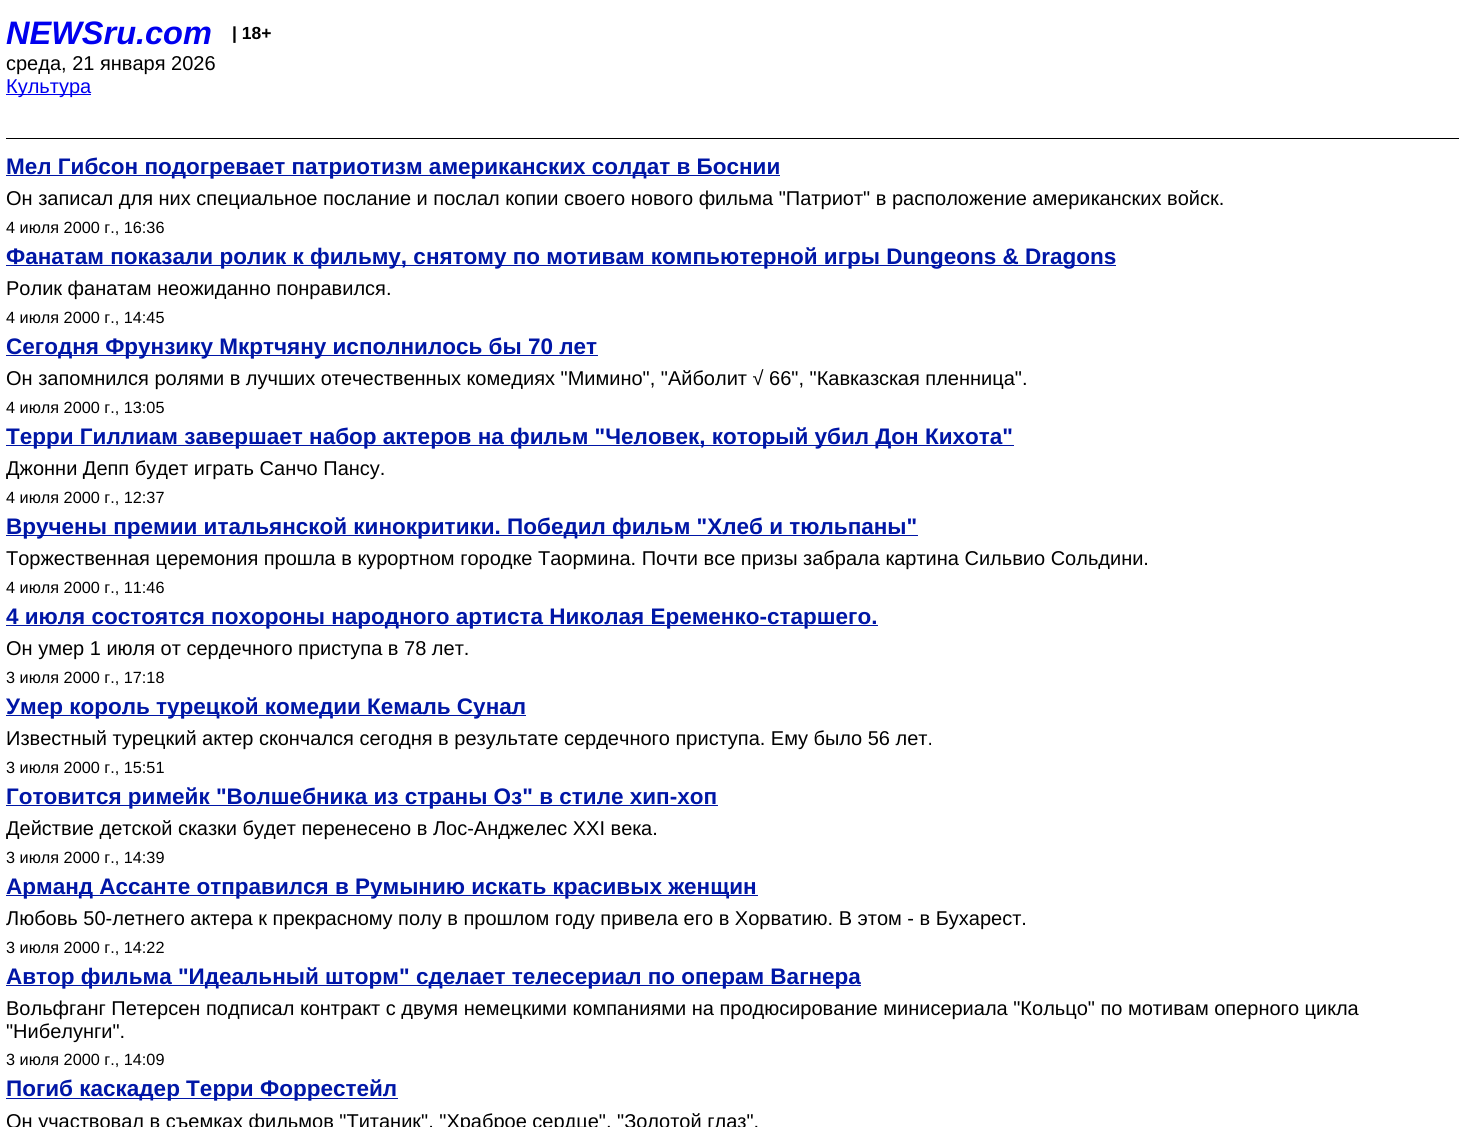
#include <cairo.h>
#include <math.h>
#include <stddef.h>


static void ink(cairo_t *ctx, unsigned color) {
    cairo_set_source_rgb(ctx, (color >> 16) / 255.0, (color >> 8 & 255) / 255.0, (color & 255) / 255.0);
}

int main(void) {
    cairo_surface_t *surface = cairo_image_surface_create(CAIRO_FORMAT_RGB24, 1464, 1127);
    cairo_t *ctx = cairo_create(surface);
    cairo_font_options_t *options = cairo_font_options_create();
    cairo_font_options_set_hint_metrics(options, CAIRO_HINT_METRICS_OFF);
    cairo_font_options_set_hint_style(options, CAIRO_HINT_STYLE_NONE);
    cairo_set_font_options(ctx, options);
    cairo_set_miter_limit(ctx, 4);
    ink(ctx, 0xFFFFFF);
    cairo_paint(ctx);
    ink(ctx, 0x000000);
    cairo_rectangle(ctx, 6, 138, 1453, 1);
    cairo_fill(ctx);
    cairo_select_font_face(ctx, "Liberation Sans", CAIRO_FONT_SLANT_ITALIC, CAIRO_FONT_WEIGHT_BOLD);
    cairo_set_font_size(ctx, 32.5);
    ink(ctx, 0x0000EE);
    cairo_move_to(ctx, 6, 44);
    cairo_show_text(ctx, "NEWSru.com");
    cairo_select_font_face(ctx, "Liberation Sans", CAIRO_FONT_SLANT_NORMAL, CAIRO_FONT_WEIGHT_BOLD);
    cairo_set_font_size(ctx, 17.5);
    ink(ctx, 0x000000);
    cairo_move_to(ctx, 232, 39);
    cairo_show_text(ctx, "| 18+");
    cairo_select_font_face(ctx, "Liberation Sans", CAIRO_FONT_SLANT_NORMAL, CAIRO_FONT_WEIGHT_NORMAL);
    cairo_set_font_size(ctx, 20);
    cairo_move_to(ctx, 6, 70);
    cairo_show_text(ctx, "среда, 21 января 2026");
    ink(ctx, 0x0000EE);
    cairo_rectangle(ctx, 6, 94, 85, 1);
    cairo_fill(ctx);
    cairo_move_to(ctx, 6, 93);
    cairo_show_text(ctx, "Культура");
    ink(ctx, 0x0016A6);
    cairo_rectangle(ctx, 6, 175, 774, 1);
    cairo_fill(ctx);
    cairo_select_font_face(ctx, "Liberation Sans", CAIRO_FONT_SLANT_NORMAL, CAIRO_FONT_WEIGHT_BOLD);
    cairo_set_font_size(ctx, 22.5);
    cairo_move_to(ctx, 6, 174);
    cairo_show_text(ctx, "Мел Гибсон подогревает патриотизм американских солдат в Боснии");
    cairo_select_font_face(ctx, "Liberation Sans", CAIRO_FONT_SLANT_NORMAL, CAIRO_FONT_WEIGHT_NORMAL);
    cairo_set_font_size(ctx, 20);
    ink(ctx, 0x000000);
    cairo_move_to(ctx, 6, 205);
    cairo_show_text(ctx, "Он записал для них специальное послание и послал копии своего нового фильма \"Патриот\" в расположение американских войск.");
    cairo_set_font_size(ctx, 16.25);
    cairo_move_to(ctx, 6, 233);
    cairo_show_text(ctx, "4 июля 2000 г., 16:36");
    ink(ctx, 0x0016A6);
    cairo_rectangle(ctx, 6, 265, 1110, 1);
    cairo_fill(ctx);
    cairo_select_font_face(ctx, "Liberation Sans", CAIRO_FONT_SLANT_NORMAL, CAIRO_FONT_WEIGHT_BOLD);
    cairo_set_font_size(ctx, 22.5);
    cairo_move_to(ctx, 6, 264);
    cairo_show_text(ctx, "Фанатам показали ролик к фильму, снятому по мотивам компьютерной игры Dungeons & Dragons");
    cairo_select_font_face(ctx, "Liberation Sans", CAIRO_FONT_SLANT_NORMAL, CAIRO_FONT_WEIGHT_NORMAL);
    cairo_set_font_size(ctx, 20);
    ink(ctx, 0x000000);
    cairo_move_to(ctx, 6, 295);
    cairo_show_text(ctx, "Ролик фанатам неожиданно понравился.");
    cairo_set_font_size(ctx, 16.25);
    cairo_move_to(ctx, 6, 323);
    cairo_show_text(ctx, "4 июля 2000 г., 14:45");
    ink(ctx, 0x0016A6);
    cairo_rectangle(ctx, 6, 355, 592, 1);
    cairo_fill(ctx);
    cairo_select_font_face(ctx, "Liberation Sans", CAIRO_FONT_SLANT_NORMAL, CAIRO_FONT_WEIGHT_BOLD);
    cairo_set_font_size(ctx, 22.5);
    cairo_move_to(ctx, 6, 354);
    cairo_show_text(ctx, "Сегодня Фрунзику Мкртчяну исполнилось бы 70 лет");
    cairo_select_font_face(ctx, "Liberation Sans", CAIRO_FONT_SLANT_NORMAL, CAIRO_FONT_WEIGHT_NORMAL);
    cairo_set_font_size(ctx, 20);
    ink(ctx, 0x000000);
    cairo_move_to(ctx, 6, 385);
    cairo_show_text(ctx, "Он запомнился ролями в лучших отечественных комедиях \"Мимино\", \"Айболит √ 66\", \"Кавказская пленница\".");
    cairo_set_font_size(ctx, 16.25);
    cairo_move_to(ctx, 6, 413);
    cairo_show_text(ctx, "4 июля 2000 г., 13:05");
    ink(ctx, 0x0016A6);
    cairo_rectangle(ctx, 6, 445, 1008, 1);
    cairo_fill(ctx);
    cairo_select_font_face(ctx, "Liberation Sans", CAIRO_FONT_SLANT_NORMAL, CAIRO_FONT_WEIGHT_BOLD);
    cairo_set_font_size(ctx, 22.5);
    cairo_move_to(ctx, 6, 444);
    cairo_show_text(ctx, "Терри Гиллиам завершает набор актеров на фильм \"Человек, который убил Дон Кихота\"");
    cairo_select_font_face(ctx, "Liberation Sans", CAIRO_FONT_SLANT_NORMAL, CAIRO_FONT_WEIGHT_NORMAL);
    cairo_set_font_size(ctx, 20);
    ink(ctx, 0x000000);
    cairo_move_to(ctx, 6, 475);
    cairo_show_text(ctx, "Джонни Депп будет играть Санчо Пансу.");
    cairo_set_font_size(ctx, 16.25);
    cairo_move_to(ctx, 6, 503);
    cairo_show_text(ctx, "4 июля 2000 г., 12:37");
    ink(ctx, 0x0016A6);
    cairo_rectangle(ctx, 6, 535, 912, 1);
    cairo_fill(ctx);
    cairo_select_font_face(ctx, "Liberation Sans", CAIRO_FONT_SLANT_NORMAL, CAIRO_FONT_WEIGHT_BOLD);
    cairo_set_font_size(ctx, 22.5);
    cairo_move_to(ctx, 6, 534);
    cairo_show_text(ctx, "Вручены премии итальянской кинокритики. Победил фильм \"Хлеб и тюльпаны\"");
    cairo_select_font_face(ctx, "Liberation Sans", CAIRO_FONT_SLANT_NORMAL, CAIRO_FONT_WEIGHT_NORMAL);
    cairo_set_font_size(ctx, 20);
    ink(ctx, 0x000000);
    cairo_move_to(ctx, 6, 565);
    cairo_show_text(ctx, "Торжественная церемония прошла в курортном городке Таормина. Почти все призы забрала картина Сильвио Сольдини.");
    cairo_set_font_size(ctx, 16.25);
    cairo_move_to(ctx, 6, 593);
    cairo_show_text(ctx, "4 июля 2000 г., 11:46");
    ink(ctx, 0x0016A6);
    cairo_rectangle(ctx, 6, 625, 872, 1);
    cairo_fill(ctx);
    cairo_select_font_face(ctx, "Liberation Sans", CAIRO_FONT_SLANT_NORMAL, CAIRO_FONT_WEIGHT_BOLD);
    cairo_set_font_size(ctx, 22.5);
    cairo_move_to(ctx, 6, 624);
    cairo_show_text(ctx, "4 июля состоятся похороны народного артиста Николая Еременко-старшего.");
    cairo_select_font_face(ctx, "Liberation Sans", CAIRO_FONT_SLANT_NORMAL, CAIRO_FONT_WEIGHT_NORMAL);
    cairo_set_font_size(ctx, 20);
    ink(ctx, 0x000000);
    cairo_move_to(ctx, 6, 655);
    cairo_show_text(ctx, "Он умер 1 июля от сердечного приступа в 78 лет.");
    cairo_set_font_size(ctx, 16.25);
    cairo_move_to(ctx, 6, 683);
    cairo_show_text(ctx, "3 июля 2000 г., 17:18");
    ink(ctx, 0x0016A6);
    cairo_rectangle(ctx, 6, 715, 520, 1);
    cairo_fill(ctx);
    cairo_select_font_face(ctx, "Liberation Sans", CAIRO_FONT_SLANT_NORMAL, CAIRO_FONT_WEIGHT_BOLD);
    cairo_set_font_size(ctx, 22.5);
    cairo_move_to(ctx, 6, 714);
    cairo_show_text(ctx, "Умер король турецкой комедии Кемаль Сунал");
    cairo_select_font_face(ctx, "Liberation Sans", CAIRO_FONT_SLANT_NORMAL, CAIRO_FONT_WEIGHT_NORMAL);
    cairo_set_font_size(ctx, 20);
    ink(ctx, 0x000000);
    cairo_move_to(ctx, 6, 745);
    cairo_show_text(ctx, "Известный турецкий актер скончался сегодня в результате сердечного приступа. Ему было 56 лет.");
    cairo_set_font_size(ctx, 16.25);
    cairo_move_to(ctx, 6, 773);
    cairo_show_text(ctx, "3 июля 2000 г., 15:51");
    ink(ctx, 0x0016A6);
    cairo_rectangle(ctx, 6, 805, 712, 1);
    cairo_fill(ctx);
    cairo_select_font_face(ctx, "Liberation Sans", CAIRO_FONT_SLANT_NORMAL, CAIRO_FONT_WEIGHT_BOLD);
    cairo_set_font_size(ctx, 22.5);
    cairo_move_to(ctx, 6, 804);
    cairo_show_text(ctx, "Готовится римейк \"Волшебника из страны Оз\" в стиле хип-хоп");
    cairo_select_font_face(ctx, "Liberation Sans", CAIRO_FONT_SLANT_NORMAL, CAIRO_FONT_WEIGHT_NORMAL);
    cairo_set_font_size(ctx, 20);
    ink(ctx, 0x000000);
    cairo_move_to(ctx, 6, 835);
    cairo_show_text(ctx, "Действие детской сказки будет перенесено в Лос-Анджелес XXI века.");
    cairo_set_font_size(ctx, 16.25);
    cairo_move_to(ctx, 6, 863);
    cairo_show_text(ctx, "3 июля 2000 г., 14:39");
    ink(ctx, 0x0016A6);
    cairo_rectangle(ctx, 6, 895, 752, 1);
    cairo_fill(ctx);
    cairo_select_font_face(ctx, "Liberation Sans", CAIRO_FONT_SLANT_NORMAL, CAIRO_FONT_WEIGHT_BOLD);
    cairo_set_font_size(ctx, 22.5);
    cairo_move_to(ctx, 6, 894);
    cairo_show_text(ctx, "Арманд Ассанте отправился в Румынию искать красивых женщин");
    cairo_select_font_face(ctx, "Liberation Sans", CAIRO_FONT_SLANT_NORMAL, CAIRO_FONT_WEIGHT_NORMAL);
    cairo_set_font_size(ctx, 20);
    ink(ctx, 0x000000);
    cairo_move_to(ctx, 6, 925);
    cairo_show_text(ctx, "Любовь 50-летнего актера к прекрасному полу в прошлом году привела его в Хорватию. В этом - в Бухарест.");
    cairo_set_font_size(ctx, 16.25);
    cairo_move_to(ctx, 6, 953);
    cairo_show_text(ctx, "3 июля 2000 г., 14:22");
    ink(ctx, 0x0016A6);
    cairo_rectangle(ctx, 6, 985, 855, 1);
    cairo_fill(ctx);
    cairo_select_font_face(ctx, "Liberation Sans", CAIRO_FONT_SLANT_NORMAL, CAIRO_FONT_WEIGHT_BOLD);
    cairo_set_font_size(ctx, 22.5);
    cairo_move_to(ctx, 6, 984);
    cairo_show_text(ctx, "Автор фильма \"Идеальный шторм\" сделает телесериал по операм Вагнера");
    cairo_select_font_face(ctx, "Liberation Sans", CAIRO_FONT_SLANT_NORMAL, CAIRO_FONT_WEIGHT_NORMAL);
    cairo_set_font_size(ctx, 20);
    ink(ctx, 0x000000);
    cairo_move_to(ctx, 6, 1015);
    cairo_show_text(ctx, "Вольфганг Петерсен подписал контракт с двумя немецкими компаниями на продюсирование минисериала \"Кольцо\" по мотивам оперного цикла");
    cairo_move_to(ctx, 6, 1038);
    cairo_show_text(ctx, "\"Нибелунги\".");
    cairo_set_font_size(ctx, 16.25);
    cairo_move_to(ctx, 6, 1065);
    cairo_show_text(ctx, "3 июля 2000 г., 14:09");
    ink(ctx, 0x0016A6);
    cairo_rectangle(ctx, 6, 1098, 392, 1);
    cairo_fill(ctx);
    cairo_select_font_face(ctx, "Liberation Sans", CAIRO_FONT_SLANT_NORMAL, CAIRO_FONT_WEIGHT_BOLD);
    cairo_set_font_size(ctx, 22.5);
    cairo_move_to(ctx, 6, 1096);
    cairo_show_text(ctx, "Погиб каскадер Терри Форрестейл");
    cairo_select_font_face(ctx, "Liberation Sans", CAIRO_FONT_SLANT_NORMAL, CAIRO_FONT_WEIGHT_NORMAL);
    cairo_set_font_size(ctx, 20);
    ink(ctx, 0x000000);
    cairo_move_to(ctx, 6, 1128);
    cairo_show_text(ctx, "Он участвовал в съемках фильмов \"Титаник\", \"Храброе сердце\", \"Золотой глаз\".");
    cairo_surface_write_to_png(surface, "image.png");
    cairo_font_options_destroy(options);
    cairo_destroy(ctx);
    cairo_surface_destroy(surface);
    return 0;
}
